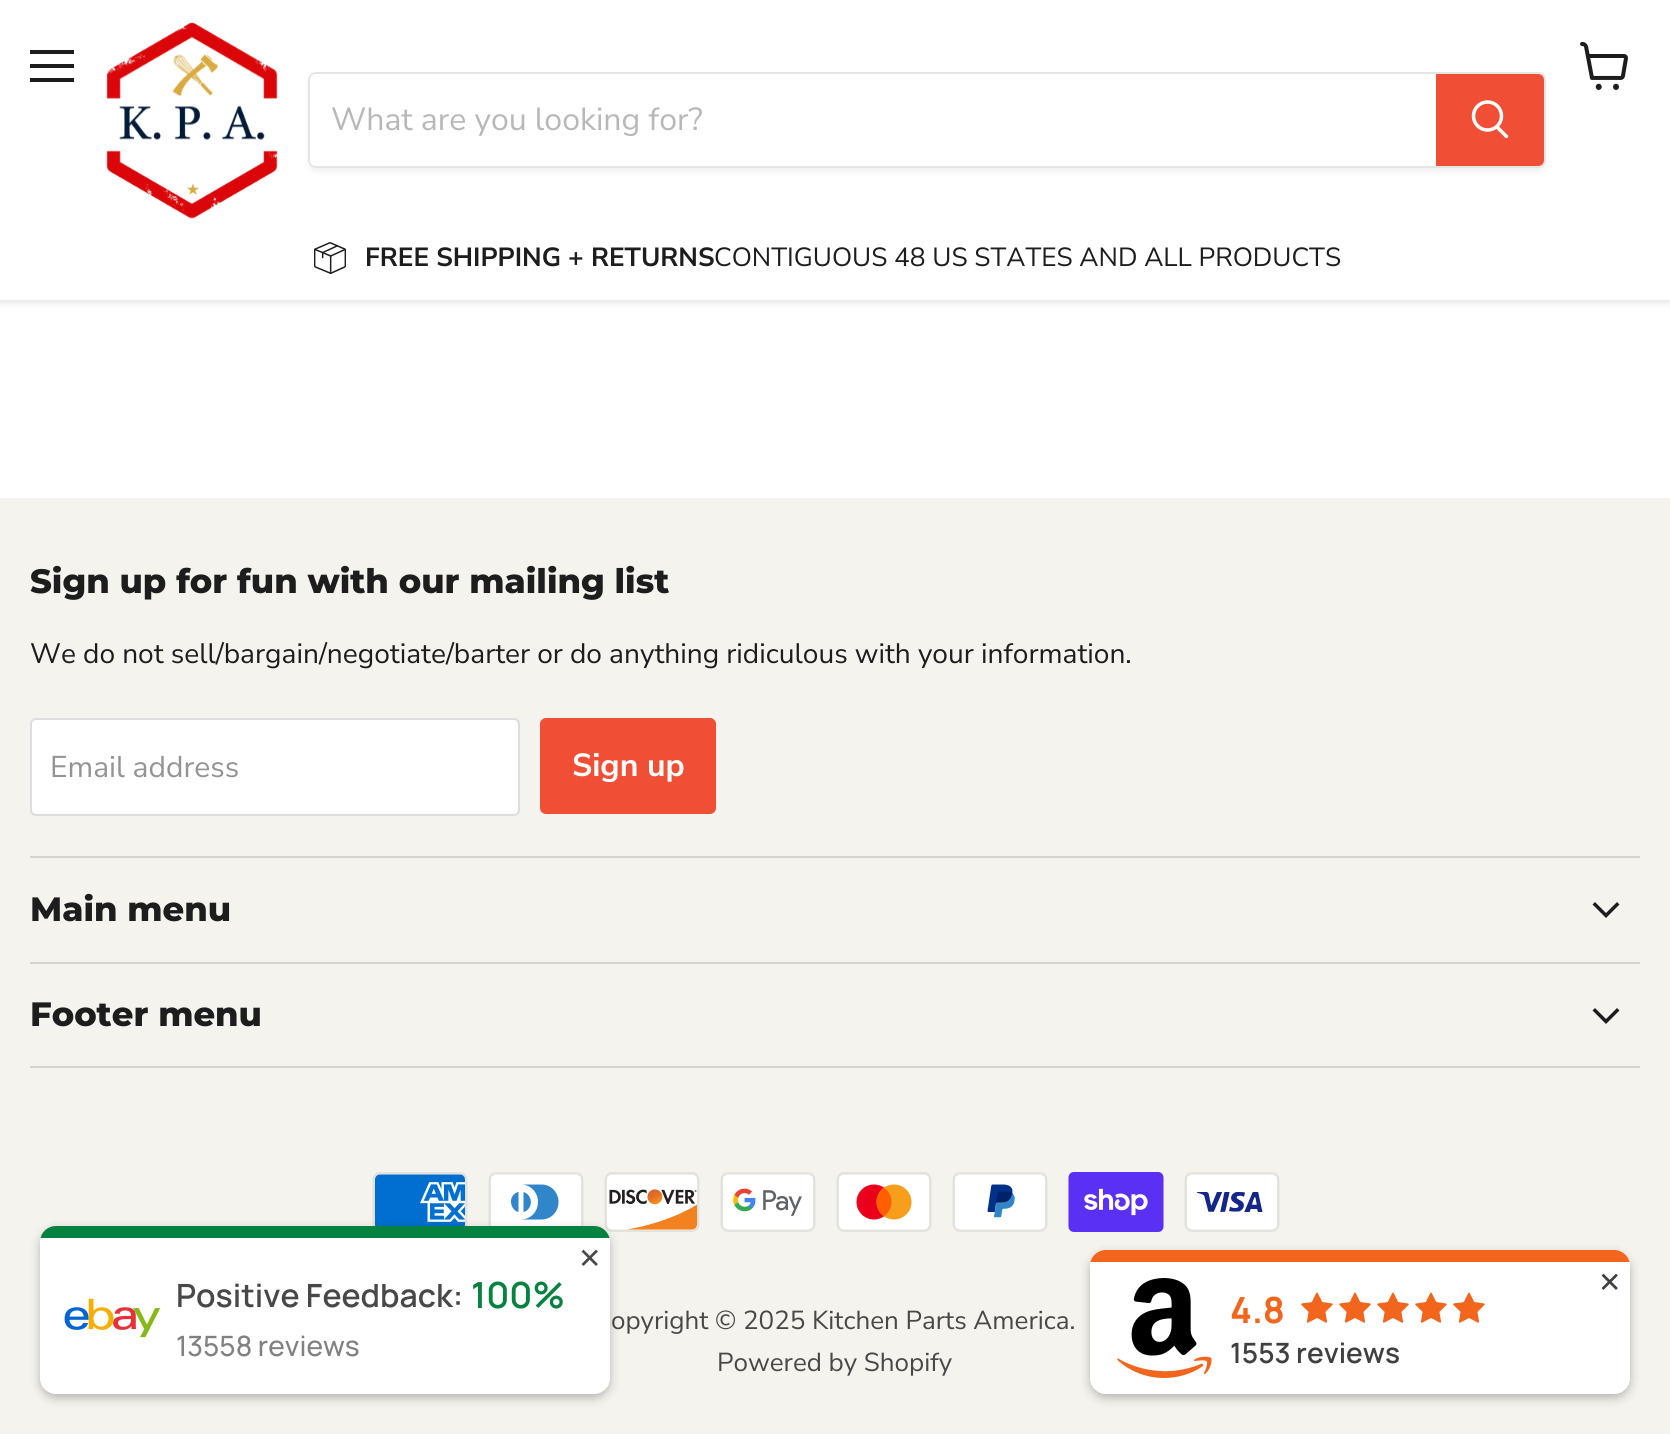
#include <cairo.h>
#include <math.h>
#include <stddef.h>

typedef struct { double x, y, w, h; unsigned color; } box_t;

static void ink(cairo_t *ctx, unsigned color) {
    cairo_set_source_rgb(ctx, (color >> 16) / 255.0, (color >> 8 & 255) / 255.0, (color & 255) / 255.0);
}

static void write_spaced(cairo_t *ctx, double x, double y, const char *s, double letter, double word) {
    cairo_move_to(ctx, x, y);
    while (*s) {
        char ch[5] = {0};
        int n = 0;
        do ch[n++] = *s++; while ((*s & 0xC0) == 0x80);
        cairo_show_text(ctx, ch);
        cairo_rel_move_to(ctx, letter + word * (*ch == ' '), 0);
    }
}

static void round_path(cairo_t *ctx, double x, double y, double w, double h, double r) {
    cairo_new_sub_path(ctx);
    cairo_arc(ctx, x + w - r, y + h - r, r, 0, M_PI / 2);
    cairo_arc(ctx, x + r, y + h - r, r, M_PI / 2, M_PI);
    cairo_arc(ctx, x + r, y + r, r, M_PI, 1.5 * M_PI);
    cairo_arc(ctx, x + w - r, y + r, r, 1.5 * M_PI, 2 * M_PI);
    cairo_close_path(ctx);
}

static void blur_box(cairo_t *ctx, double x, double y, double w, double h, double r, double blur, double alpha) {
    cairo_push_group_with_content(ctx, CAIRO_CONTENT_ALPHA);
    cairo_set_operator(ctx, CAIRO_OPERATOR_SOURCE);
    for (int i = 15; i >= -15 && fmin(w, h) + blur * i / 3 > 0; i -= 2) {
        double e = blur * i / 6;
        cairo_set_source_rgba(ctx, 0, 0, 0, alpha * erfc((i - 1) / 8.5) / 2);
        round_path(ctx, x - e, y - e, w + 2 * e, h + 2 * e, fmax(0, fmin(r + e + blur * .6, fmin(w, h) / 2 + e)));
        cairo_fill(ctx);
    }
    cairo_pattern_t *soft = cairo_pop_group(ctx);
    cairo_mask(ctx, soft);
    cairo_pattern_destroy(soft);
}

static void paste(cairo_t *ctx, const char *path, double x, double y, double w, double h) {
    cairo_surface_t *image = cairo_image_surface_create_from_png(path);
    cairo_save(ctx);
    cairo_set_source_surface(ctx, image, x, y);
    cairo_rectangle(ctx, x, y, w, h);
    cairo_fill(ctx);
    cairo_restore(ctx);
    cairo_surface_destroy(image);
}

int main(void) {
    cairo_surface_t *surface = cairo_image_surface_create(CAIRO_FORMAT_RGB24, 1670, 1434);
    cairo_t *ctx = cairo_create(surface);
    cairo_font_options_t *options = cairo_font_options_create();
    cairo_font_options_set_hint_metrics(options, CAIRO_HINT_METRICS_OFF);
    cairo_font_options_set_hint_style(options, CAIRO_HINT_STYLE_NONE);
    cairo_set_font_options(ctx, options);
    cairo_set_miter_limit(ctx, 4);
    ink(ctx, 0xFFFFFF);
    cairo_paint(ctx);
    ink(ctx, 0x808080);
    blur_box(ctx, 0, 2, 1670, 300, 0, 4, 0.25);
    {
        static const box_t items[] = {
            {0, 0, 1670, 300, 0xFFFFFF},
            {30, 50, 44, 4, 0x1D1D1D},
            {30, 64, 44, 4, 0x1D1D1D},
            {30, 78, 44, 4, 0x1D1D1D},
        };
        for (size_t i = 0; i < sizeof items / sizeof *items; i++) {
            ink(ctx, items[i].color);
            cairo_rectangle(ctx, items[i].x, items[i].y, items[i].w, items[i].h);
            cairo_fill(ctx);
        }
    }
    paste(ctx, "media/1.png", 1580, 42, 48, 48);
    paste(ctx, "media/2.png", 106, 22, 172, 197);
    cairo_save(ctx);
    cairo_set_fill_rule(ctx, CAIRO_FILL_RULE_EVEN_ODD);
    cairo_new_path(ctx);
    cairo_move_to(ctx, 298, 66);
    cairo_line_to(ctx, 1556, 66);
    cairo_line_to(ctx, 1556, 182);
    cairo_line_to(ctx, 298, 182);
    cairo_close_path(ctx);
    cairo_move_to(ctx, 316, 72);
    cairo_line_to(ctx, 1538, 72);
    cairo_curve_to(ctx, 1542.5, 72, 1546, 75.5, 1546, 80);
    cairo_line_to(ctx, 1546, 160);
    cairo_curve_to(ctx, 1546, 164.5, 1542.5, 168, 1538, 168);
    cairo_line_to(ctx, 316, 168);
    cairo_curve_to(ctx, 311.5, 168, 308, 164.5, 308, 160);
    cairo_line_to(ctx, 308, 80);
    cairo_curve_to(ctx, 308, 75.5, 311.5, 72, 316, 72);
    cairo_close_path(ctx);
    cairo_clip(ctx);
    ink(ctx, 0x808080);
    blur_box(ctx, 308, 76, 1238, 96, 8, 3, 0.11);
    cairo_restore(ctx);
    round_path(ctx, 309, 73, 1236, 94, 7);
    cairo_set_source_rgba(ctx, 0.502, 0.502, 0.502, 0.2);
    cairo_stroke(ctx);
    ink(ctx, 0xFFFFFF);
    cairo_new_path(ctx);
    cairo_move_to(ctx, 316, 74);
    cairo_line_to(ctx, 1436, 74);
    cairo_line_to(ctx, 1436, 166);
    cairo_line_to(ctx, 316, 166);
    cairo_curve_to(ctx, 312.5, 166, 310, 163.5, 310, 160);
    cairo_line_to(ctx, 310, 80);
    cairo_curve_to(ctx, 310, 76.5, 312.5, 74, 316, 74);
    cairo_close_path(ctx);
    cairo_fill(ctx);
    cairo_select_font_face(ctx, "Nunito Sans", CAIRO_FONT_SLANT_NORMAL, CAIRO_FONT_WEIGHT_NORMAL);
    cairo_set_font_size(ctx, 32);
    ink(ctx, 0xB8B8B8);
    cairo_move_to(ctx, 331, 130);
    cairo_show_text(ctx, "What are you looking for?");
    ink(ctx, 0xF04F36);
    cairo_new_path(ctx);
    cairo_move_to(ctx, 1437, 75);
    cairo_line_to(ctx, 1538, 75);
    cairo_curve_to(ctx, 1541, 75, 1543, 77, 1543, 80);
    cairo_line_to(ctx, 1543, 160);
    cairo_curve_to(ctx, 1543, 163, 1541, 165, 1538, 165);
    cairo_line_to(ctx, 1437, 165);
    cairo_close_path(ctx);
    cairo_fill_preserve(ctx);
    cairo_stroke(ctx);
    cairo_new_path(ctx);
    cairo_move_to(ctx, 1506.5, 136.5);
    cairo_line_to(ctx, 1497, 127);
    ink(ctx, 0xFFFFFF);
    cairo_set_line_width(ctx, 3.5);
    cairo_set_line_cap(ctx, CAIRO_LINE_CAP_ROUND);
    cairo_stroke(ctx);
    cairo_arc(ctx, 1487.5, 116, 14, 0, 2 * M_PI);
    cairo_set_line_cap(ctx, CAIRO_LINE_CAP_BUTT);
    cairo_stroke(ctx);
    paste(ctx, "media/3.png", 314, 242, 32, 32);
    cairo_select_font_face(ctx, "Nunito Sans", CAIRO_FONT_SLANT_NORMAL, CAIRO_FONT_WEIGHT_BOLD);
    cairo_set_font_size(ctx, 26.25);
    ink(ctx, 0x1D1D1D);
    cairo_move_to(ctx, 365, 266);
    cairo_show_text(ctx, "FREE SHIPPING + RETURNS");
    cairo_select_font_face(ctx, "Nunito Sans", CAIRO_FONT_SLANT_NORMAL, CAIRO_FONT_WEIGHT_NORMAL);
    cairo_move_to(ctx, 714, 266);
    cairo_show_text(ctx, "CONTIGUOUS 48 US STATES AND ALL PRODUCTS");
    ink(ctx, 0xF5F3ED);
    cairo_rectangle(ctx, 0, 498, 1670, 936);
    cairo_fill(ctx);
    ink(ctx, 0xD5D3CE);
    cairo_rectangle(ctx, 30, 856, 1610, 2);
    cairo_fill(ctx);
    cairo_select_font_face(ctx, "Montserrat ExtraBold", CAIRO_FONT_SLANT_NORMAL, CAIRO_FONT_WEIGHT_NORMAL);
    cairo_set_font_size(ctx, 33.75);
    ink(ctx, 0x1D1D1D);
    cairo_move_to(ctx, 30, 593);
    cairo_show_text(ctx, "Sign up for fun with our mailing list");
    cairo_select_font_face(ctx, "Nunito Sans", CAIRO_FONT_SLANT_NORMAL, CAIRO_FONT_WEIGHT_NORMAL);
    cairo_set_font_size(ctx, 28.1);
    write_spaced(ctx, 30, 663, "We do not sell/bargain/negotiate/barter or do anything ridiculous with your information.", 0, -0.1);
    ink(ctx, 0xFFFFFF);
    round_path(ctx, 31, 719, 488, 96, 5);
    cairo_fill_preserve(ctx);
    ink(ctx, 0xDDDDDD);
    cairo_set_line_width(ctx, 2);
    cairo_stroke(ctx);
    cairo_set_font_size(ctx, 30);
    ink(ctx, 0x949494);
    cairo_move_to(ctx, 50, 777);
    cairo_show_text(ctx, "Email address");
    ink(ctx, 0xF04F36);
    round_path(ctx, 541, 719, 174, 94, 5);
    cairo_fill_preserve(ctx);
    cairo_stroke(ctx);
    cairo_select_font_face(ctx, "Nunito Sans", CAIRO_FONT_SLANT_NORMAL, CAIRO_FONT_WEIGHT_BOLD);
    cairo_set_font_size(ctx, 32);
    ink(ctx, 0xFFFFFF);
    cairo_move_to(ctx, 572, 776);
    cairo_show_text(ctx, "Sign up");
    ink(ctx, 0xD5D3CE);
    cairo_rectangle(ctx, 30, 962, 1610, 2);
    cairo_fill(ctx);
    cairo_select_font_face(ctx, "Montserrat ExtraBold", CAIRO_FONT_SLANT_NORMAL, CAIRO_FONT_WEIGHT_NORMAL);
    cairo_set_font_size(ctx, 33.75);
    ink(ctx, 0x1D1D1D);
    cairo_move_to(ctx, 30, 921);
    cairo_show_text(ctx, "Main menu");
    cairo_new_path(ctx);
    cairo_move_to(ctx, 1606, 915.5);
    cairo_line_to(ctx, 1617, 904.5);
    cairo_move_to(ctx, 1606, 915.5);
    cairo_line_to(ctx, 1595, 904.5);
    cairo_set_line_width(ctx, 3.5);
    cairo_set_line_cap(ctx, CAIRO_LINE_CAP_SQUARE);
    cairo_stroke(ctx);
    ink(ctx, 0xD5D3CE);
    cairo_rectangle(ctx, 30, 1066, 1610, 2);
    cairo_fill(ctx);
    ink(ctx, 0x1D1D1D);
    cairo_move_to(ctx, 30, 1026);
    cairo_show_text(ctx, "Footer menu");
    cairo_new_path(ctx);
    cairo_move_to(ctx, 1606, 1021.5);
    cairo_line_to(ctx, 1617, 1010.5);
    cairo_move_to(ctx, 1606, 1021.5);
    cairo_line_to(ctx, 1595, 1010.5);
    cairo_stroke(ctx);
    paste(ctx, "media/4.png", 372, 1172, 96, 54);
    paste(ctx, "media/5.png", 488, 1172, 96, 54);
    paste(ctx, "media/6.png", 604, 1172, 96, 60);
    paste(ctx, "media/7.png", 720, 1172, 96, 60);
    paste(ctx, "media/8.png", 836, 1172, 96, 60);
    paste(ctx, "media/9.png", 952, 1172, 96, 60);
    paste(ctx, "media/10.png", 1068, 1172, 96, 60);
    paste(ctx, "media/11.png", 1184, 1172, 96, 60);
    cairo_select_font_face(ctx, "Nunito Sans", CAIRO_FONT_SLANT_NORMAL, CAIRO_FONT_WEIGHT_NORMAL);
    cairo_set_font_size(ctx, 26);
    ink(ctx, 0x484847);
    cairo_move_to(ctx, 611, 1329);
    cairo_show_text(ctx, "opyright © 2025 Kitchen Parts America.");
    cairo_move_to(ctx, 717, 1371);
    cairo_show_text(ctx, "Powered by Shopify");
    ink(ctx, 0x000000);
    blur_box(ctx, 40, 1230, 570, 168, 16, 5, 0.26);
    cairo_save(ctx);
    round_path(ctx, 40, 1226, 570, 168, 16);
    cairo_clip(ctx);
    ink(ctx, 0x05823F);
    cairo_rectangle(ctx, 40, 1226, 570, 12);
    cairo_fill(ctx);
    ink(ctx, 0xFFFFFF);
    cairo_new_path(ctx);
    cairo_move_to(ctx, 40, 1238);
    cairo_line_to(ctx, 610, 1238);
    cairo_line_to(ctx, 610, 1378);
    cairo_curve_to(ctx, 610, 1387, 603, 1394, 594, 1394);
    cairo_line_to(ctx, 56, 1394);
    cairo_curve_to(ctx, 47, 1394, 40, 1387, 40, 1378);
    cairo_close_path(ctx);
    cairo_fill(ctx);
    cairo_rectangle(ctx, 570, 1238, 40, 40);
    cairo_fill(ctx);
    cairo_restore(ctx);
    cairo_select_font_face(ctx, "DejaVu Sans", CAIRO_FONT_SLANT_NORMAL, CAIRO_FONT_WEIGHT_NORMAL);
    cairo_set_font_size(ctx, 28);
    ink(ctx, 0x484847);
    cairo_move_to(ctx, 578, 1268);
    cairo_show_text(ctx, "✕");
    paste(ctx, "media/12.png", 64, 1298, 96, 40);
    cairo_select_font_face(ctx, "Manrope SemiBold", CAIRO_FONT_SLANT_NORMAL, CAIRO_FONT_WEIGHT_NORMAL);
    cairo_set_font_size(ctx, 32);
    cairo_move_to(ctx, 176, 1307);
    cairo_show_text(ctx, "Positive Feedback:");
    cairo_set_font_size(ctx, 36);
    ink(ctx, 0x05823F);
    cairo_move_to(ctx, 471, 1308);
    cairo_show_text(ctx, "100%");
    cairo_select_font_face(ctx, "Manrope Medium", CAIRO_FONT_SLANT_NORMAL, CAIRO_FONT_WEIGHT_NORMAL);
    cairo_set_font_size(ctx, 28);
    ink(ctx, 0x818181);
    cairo_move_to(ctx, 176, 1356);
    cairo_show_text(ctx, "13558 reviews");
    ink(ctx, 0x000000);
    blur_box(ctx, 1090, 1254, 540, 144, 16, 5, 0.26);
    cairo_save(ctx);
    round_path(ctx, 1090, 1250, 540, 144, 16);
    cairo_clip(ctx);
    ink(ctx, 0xF1651D);
    cairo_rectangle(ctx, 1090, 1250, 540, 12);
    cairo_fill(ctx);
    ink(ctx, 0xFFFFFF);
    cairo_new_path(ctx);
    cairo_move_to(ctx, 1090, 1262);
    cairo_line_to(ctx, 1630, 1262);
    cairo_line_to(ctx, 1630, 1378);
    cairo_curve_to(ctx, 1630, 1387, 1623, 1394, 1614, 1394);
    cairo_line_to(ctx, 1106, 1394);
    cairo_curve_to(ctx, 1097, 1394, 1090, 1387, 1090, 1378);
    cairo_close_path(ctx);
    cairo_fill(ctx);
    cairo_restore(ctx);
    cairo_select_font_face(ctx, "DejaVu Sans", CAIRO_FONT_SLANT_NORMAL, CAIRO_FONT_WEIGHT_NORMAL);
    ink(ctx, 0x404040);
    cairo_move_to(ctx, 1598, 1292);
    cairo_show_text(ctx, "✕");
    paste(ctx, "media/13.png", 1117, 1278, 95, 100);
    cairo_select_font_face(ctx, "Manrope", CAIRO_FONT_SLANT_NORMAL, CAIRO_FONT_WEIGHT_BOLD);
    cairo_set_font_size(ctx, 36);
    ink(ctx, 0xF1651D);
    cairo_move_to(ctx, 1230, 1323);
    cairo_show_text(ctx, "4.8");
    paste(ctx, "media/14.png", 1301, 1292, 32, 31);
    paste(ctx, "media/14.png", 1339, 1292, 32, 31);
    paste(ctx, "media/14.png", 1377, 1292, 32, 31);
    paste(ctx, "media/14.png", 1415, 1292, 32, 31);
    paste(ctx, "media/14.png", 1453, 1292, 32, 31);
    cairo_select_font_face(ctx, "Manrope SemiBold", CAIRO_FONT_SLANT_NORMAL, CAIRO_FONT_WEIGHT_NORMAL);
    cairo_set_font_size(ctx, 28);
    ink(ctx, 0x404040);
    cairo_move_to(ctx, 1230, 1363);
    cairo_show_text(ctx, "1553 reviews");
    cairo_surface_write_to_png(surface, "image.png");
    cairo_font_options_destroy(options);
    cairo_destroy(ctx);
    cairo_surface_destroy(surface);
    return 0;
}
